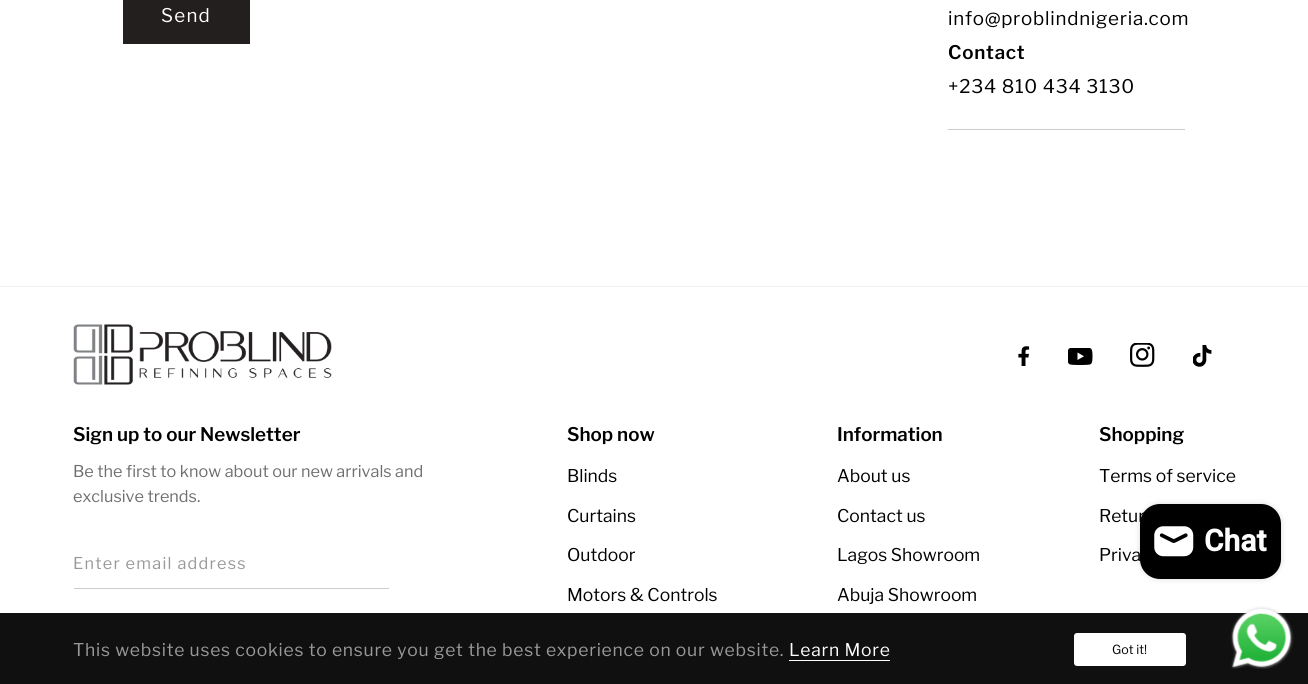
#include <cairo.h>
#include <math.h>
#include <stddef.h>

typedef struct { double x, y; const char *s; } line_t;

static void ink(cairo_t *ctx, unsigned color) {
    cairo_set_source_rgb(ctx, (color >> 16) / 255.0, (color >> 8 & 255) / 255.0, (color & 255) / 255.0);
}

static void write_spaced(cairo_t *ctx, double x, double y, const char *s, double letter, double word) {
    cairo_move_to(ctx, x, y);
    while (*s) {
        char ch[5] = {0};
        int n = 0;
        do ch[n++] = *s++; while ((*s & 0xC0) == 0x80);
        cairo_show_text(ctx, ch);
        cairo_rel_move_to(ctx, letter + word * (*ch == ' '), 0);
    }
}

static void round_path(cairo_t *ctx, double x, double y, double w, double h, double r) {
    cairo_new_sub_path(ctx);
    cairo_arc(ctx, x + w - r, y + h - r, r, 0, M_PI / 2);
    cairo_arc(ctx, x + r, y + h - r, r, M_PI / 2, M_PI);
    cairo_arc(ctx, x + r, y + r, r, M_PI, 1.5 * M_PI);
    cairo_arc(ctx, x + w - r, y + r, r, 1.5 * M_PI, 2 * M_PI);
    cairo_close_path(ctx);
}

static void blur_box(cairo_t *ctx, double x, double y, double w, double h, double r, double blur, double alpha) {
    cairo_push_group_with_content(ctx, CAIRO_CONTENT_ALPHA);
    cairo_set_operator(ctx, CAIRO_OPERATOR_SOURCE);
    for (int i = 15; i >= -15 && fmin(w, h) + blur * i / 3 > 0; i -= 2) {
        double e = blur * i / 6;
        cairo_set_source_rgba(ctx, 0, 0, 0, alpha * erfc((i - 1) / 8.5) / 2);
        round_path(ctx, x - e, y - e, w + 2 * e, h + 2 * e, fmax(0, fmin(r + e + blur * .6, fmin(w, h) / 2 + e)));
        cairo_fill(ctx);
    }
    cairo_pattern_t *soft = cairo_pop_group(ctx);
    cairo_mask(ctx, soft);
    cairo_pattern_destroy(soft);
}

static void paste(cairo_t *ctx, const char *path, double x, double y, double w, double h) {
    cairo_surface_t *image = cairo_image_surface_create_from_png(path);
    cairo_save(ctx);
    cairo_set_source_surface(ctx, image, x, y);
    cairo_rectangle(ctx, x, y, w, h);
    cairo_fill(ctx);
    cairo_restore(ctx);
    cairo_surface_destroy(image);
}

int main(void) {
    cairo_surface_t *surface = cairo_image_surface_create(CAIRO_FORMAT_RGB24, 1308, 684);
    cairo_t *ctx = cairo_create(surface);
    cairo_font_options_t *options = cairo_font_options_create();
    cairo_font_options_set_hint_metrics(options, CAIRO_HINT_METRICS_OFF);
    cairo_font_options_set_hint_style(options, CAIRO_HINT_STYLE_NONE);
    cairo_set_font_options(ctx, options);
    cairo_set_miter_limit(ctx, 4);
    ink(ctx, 0xFFFFFF);
    cairo_paint(ctx);
    cairo_rectangle(ctx, 123.5, -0.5, 126, 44);
    ink(ctx, 0x231F1E);
    cairo_set_line_width(ctx, 1);
    cairo_stroke(ctx);
    cairo_rectangle(ctx, 124, 0, 125, 43);
    cairo_fill(ctx);
    cairo_select_font_face(ctx, "Libre Franklin", CAIRO_FONT_SLANT_NORMAL, CAIRO_FONT_WEIGHT_NORMAL);
    cairo_set_font_size(ctx, 18.75);
    ink(ctx, 0xFFFFFF);
    write_spaced(ctx, 161, 22, "Send", 1.25, 0);
    ink(ctx, 0xCCCCCC);
    cairo_rectangle(ctx, 948, 129, 237, 1);
    cairo_fill(ctx);
    ink(ctx, 0x000000);
    write_spaced(ctx, 948, 25, "info@problindnigeria.com", 0.75, 0);
    cairo_select_font_face(ctx, "Libre Franklin SemiBold", CAIRO_FONT_SLANT_NORMAL, CAIRO_FONT_WEIGHT_NORMAL);
    write_spaced(ctx, 948, 59, "Contact", 0.75, 0);
    cairo_select_font_face(ctx, "Libre Franklin", CAIRO_FONT_SLANT_NORMAL, CAIRO_FONT_WEIGHT_NORMAL);
    write_spaced(ctx, 948, 93, "+234 810 434 3130", 0.75, 0);
    ink(ctx, 0xF0F0F0);
    cairo_rectangle(ctx, 0, 286, 1308, 1);
    cairo_fill(ctx);
    paste(ctx, "media/1.png", 73, 324, 259, 61);
    paste(ctx, "media/2.png", 1018, 346, 12, 20);
    paste(ctx, "media/3.png", 1068, 348, 25, 17);
    paste(ctx, "media/4.png", 1130, 343, 25, 24);
    paste(ctx, "media/5.png", 1193, 345, 19, 22);
    cairo_select_font_face(ctx, "Libre Franklin SemiBold", CAIRO_FONT_SLANT_NORMAL, CAIRO_FONT_WEIGHT_NORMAL);
    ink(ctx, 0x000000);
    cairo_move_to(ctx, 73, 441);
    cairo_show_text(ctx, "Sign up to our Newsletter");
    cairo_select_font_face(ctx, "Libre Franklin", CAIRO_FONT_SLANT_NORMAL, CAIRO_FONT_WEIGHT_NORMAL);
    cairo_set_font_size(ctx, 16.25);
    ink(ctx, 0x6F6F6F);
    cairo_move_to(ctx, 73, 477);
    cairo_show_text(ctx, "Be the first to know about our new arrivals and");
    cairo_move_to(ctx, 73, 502);
    cairo_show_text(ctx, "exclusive trends.");
    ink(ctx, 0x999999);
    write_spaced(ctx, 73, 569, "Enter email address", 1.25, 0);
    ink(ctx, 0xCCCCCC);
    cairo_rectangle(ctx, 74, 588, 315, 1);
    cairo_fill(ctx);
    cairo_select_font_face(ctx, "Libre Franklin SemiBold", CAIRO_FONT_SLANT_NORMAL, CAIRO_FONT_WEIGHT_NORMAL);
    cairo_set_font_size(ctx, 18.75);
    ink(ctx, 0x000000);
    cairo_move_to(ctx, 567, 441);
    cairo_show_text(ctx, "Shop now");
    cairo_select_font_face(ctx, "Libre Franklin", CAIRO_FONT_SLANT_NORMAL, CAIRO_FONT_WEIGHT_NORMAL);
    cairo_set_font_size(ctx, 17.5);
    {
        static const line_t items[] = {
            {567, 482, "Blinds"},
            {567, 522, "Curtains"},
            {567, 561, "Outdoor"},
            {567, 601, "Motors & Controls"},
        };
        for (size_t i = 0; i < sizeof items / sizeof *items; i++) {
            cairo_move_to(ctx, items[i].x, items[i].y);
            cairo_show_text(ctx, items[i].s);
        }
    }
    cairo_select_font_face(ctx, "Libre Franklin SemiBold", CAIRO_FONT_SLANT_NORMAL, CAIRO_FONT_WEIGHT_NORMAL);
    cairo_set_font_size(ctx, 18.75);
    cairo_move_to(ctx, 837, 441);
    cairo_show_text(ctx, "Information");
    cairo_select_font_face(ctx, "Libre Franklin", CAIRO_FONT_SLANT_NORMAL, CAIRO_FONT_WEIGHT_NORMAL);
    cairo_set_font_size(ctx, 17.5);
    {
        static const line_t items[] = {
            {837, 482, "About us"},
            {837, 522, "Contact us"},
            {837, 561, "Lagos Showroom"},
            {837, 601, "Abuja Showroom"},
        };
        for (size_t i = 0; i < sizeof items / sizeof *items; i++) {
            cairo_move_to(ctx, items[i].x, items[i].y);
            cairo_show_text(ctx, items[i].s);
        }
    }
    cairo_select_font_face(ctx, "Libre Franklin SemiBold", CAIRO_FONT_SLANT_NORMAL, CAIRO_FONT_WEIGHT_NORMAL);
    cairo_set_font_size(ctx, 18.75);
    cairo_move_to(ctx, 1099, 441);
    cairo_show_text(ctx, "Shopping");
    cairo_select_font_face(ctx, "Libre Franklin", CAIRO_FONT_SLANT_NORMAL, CAIRO_FONT_WEIGHT_NORMAL);
    cairo_set_font_size(ctx, 17.5);
    {
        static const line_t items[] = {
            {1099, 482, "Terms of service"},
            {1099, 522, "Retur"},
            {1099, 561, "Priva"},
        };
        for (size_t i = 0; i < sizeof items / sizeof *items; i++) {
            cairo_move_to(ctx, items[i].x, items[i].y);
            cairo_show_text(ctx, items[i].s);
        }
    }
    ink(ctx, 0x000000);
    blur_box(ctx, 1140, 504, 141, 75, 20, 3, 0.15);
    ink(ctx, 0x000000);
    round_path(ctx, 1140, 504, 141, 75, 20);
    cairo_fill(ctx);
    paste(ctx, "media/6.png", 1154, 526, 40, 31);
    cairo_select_font_face(ctx, "Roboto", CAIRO_FONT_SLANT_NORMAL, CAIRO_FONT_WEIGHT_BOLD);
    cairo_set_font_size(ctx, 30);
    ink(ctx, 0xFFFFFF);
    cairo_move_to(ctx, 1204, 551);
    cairo_show_text(ctx, "Chat");
    ink(ctx, 0x101010);
    cairo_rectangle(ctx, 0, 613, 1308, 71);
    cairo_fill(ctx);
    cairo_select_font_face(ctx, "Libre Franklin", CAIRO_FONT_SLANT_NORMAL, CAIRO_FONT_WEIGHT_NORMAL);
    cairo_set_font_size(ctx, 17.5);
    ink(ctx, 0x999999);
    write_spaced(ctx, 73, 656, "This website uses cookies to ensure you get the best experience on our website.", 0.75, 0);
    ink(ctx, 0xFFFFFF);
    write_spaced(ctx, 789, 656, "Learn More", 0.75, 0);
    cairo_rectangle(ctx, 789, 660, 101, 1);
    cairo_fill(ctx);
    round_path(ctx, 1074, 633, 112, 33, 3);
    cairo_fill(ctx);
    cairo_set_font_size(ctx, 12.5);
    ink(ctx, 0x000000);
    cairo_move_to(ctx, 1112, 654);
    cairo_show_text(ctx, "Got it!");
    paste(ctx, "media/7.png", 1230, 606, 64, 63);
    cairo_surface_write_to_png(surface, "image.png");
    cairo_font_options_destroy(options);
    cairo_destroy(ctx);
    cairo_surface_destroy(surface);
    return 0;
}
